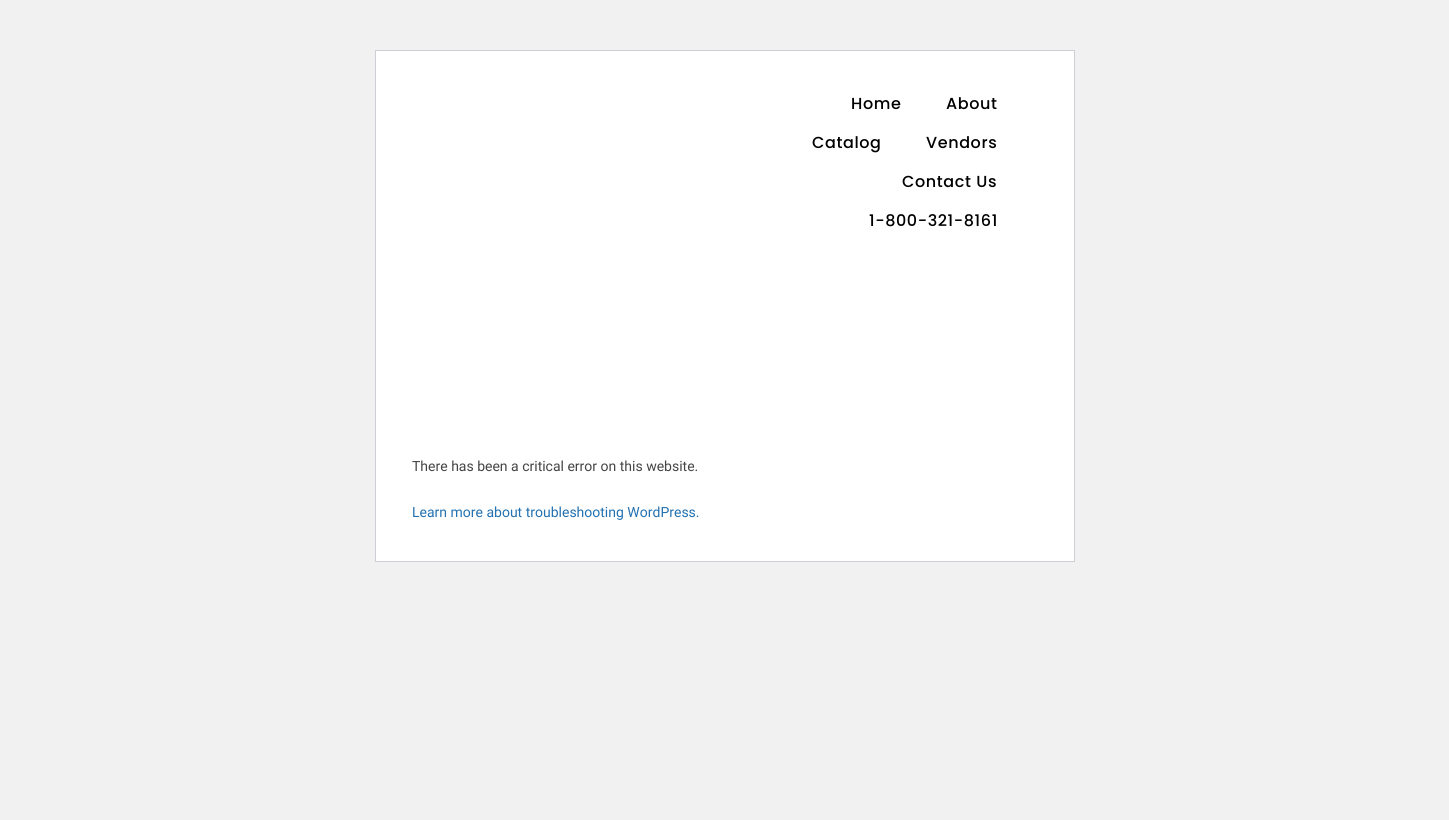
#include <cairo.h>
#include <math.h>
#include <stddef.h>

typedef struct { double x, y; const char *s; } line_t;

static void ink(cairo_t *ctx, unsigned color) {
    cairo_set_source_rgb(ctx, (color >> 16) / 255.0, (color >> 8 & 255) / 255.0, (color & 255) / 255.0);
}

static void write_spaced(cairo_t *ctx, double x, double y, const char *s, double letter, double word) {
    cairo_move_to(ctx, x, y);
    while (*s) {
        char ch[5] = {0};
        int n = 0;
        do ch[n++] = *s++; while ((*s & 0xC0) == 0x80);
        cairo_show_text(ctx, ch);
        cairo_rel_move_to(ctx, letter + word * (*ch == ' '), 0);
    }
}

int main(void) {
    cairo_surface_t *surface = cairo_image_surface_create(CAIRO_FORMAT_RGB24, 1449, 820);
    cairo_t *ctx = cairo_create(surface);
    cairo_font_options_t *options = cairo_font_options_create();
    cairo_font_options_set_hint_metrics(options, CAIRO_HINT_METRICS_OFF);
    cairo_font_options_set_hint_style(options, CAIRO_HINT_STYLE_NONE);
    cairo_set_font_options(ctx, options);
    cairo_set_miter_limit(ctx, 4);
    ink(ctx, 0xF1F1F1);
    cairo_paint(ctx);
    ink(ctx, 0xFFFFFF);
    cairo_rectangle(ctx, 375.5, 50.5, 699, 511);
    cairo_fill_preserve(ctx);
    ink(ctx, 0xCCD0D4);
    cairo_set_line_width(ctx, 1);
    cairo_stroke(ctx);
    cairo_select_font_face(ctx, "Poppins Medium", CAIRO_FONT_SLANT_NORMAL, CAIRO_FONT_WEIGHT_NORMAL);
    cairo_set_font_size(ctx, 16);
    ink(ctx, 0x000000);
    {
        static const line_t items[] = {
            {851, 109, "Home"},
            {946, 109, "About"},
            {812, 148, "Catalog"},
            {926, 148, "Vendors"},
            {902, 187, "Contact Us"},
            {869, 226, "1-800-321-8161"},
        };
        for (size_t i = 0; i < sizeof items / sizeof *items; i++) {
            write_spaced(ctx, items[i].x, items[i].y, items[i].s, 0.6, 0);
        }
    }
    cairo_select_font_face(ctx, "Roboto", CAIRO_FONT_SLANT_NORMAL, CAIRO_FONT_WEIGHT_NORMAL);
    cairo_set_font_size(ctx, 14);
    ink(ctx, 0x444444);
    cairo_move_to(ctx, 412, 471);
    cairo_show_text(ctx, "There has been a critical error on this website.");
    ink(ctx, 0x2271B1);
    cairo_move_to(ctx, 412, 517);
    cairo_show_text(ctx, "Learn more about troubleshooting WordPress.");
    cairo_surface_write_to_png(surface, "image.png");
    cairo_font_options_destroy(options);
    cairo_destroy(ctx);
    cairo_surface_destroy(surface);
    return 0;
}
